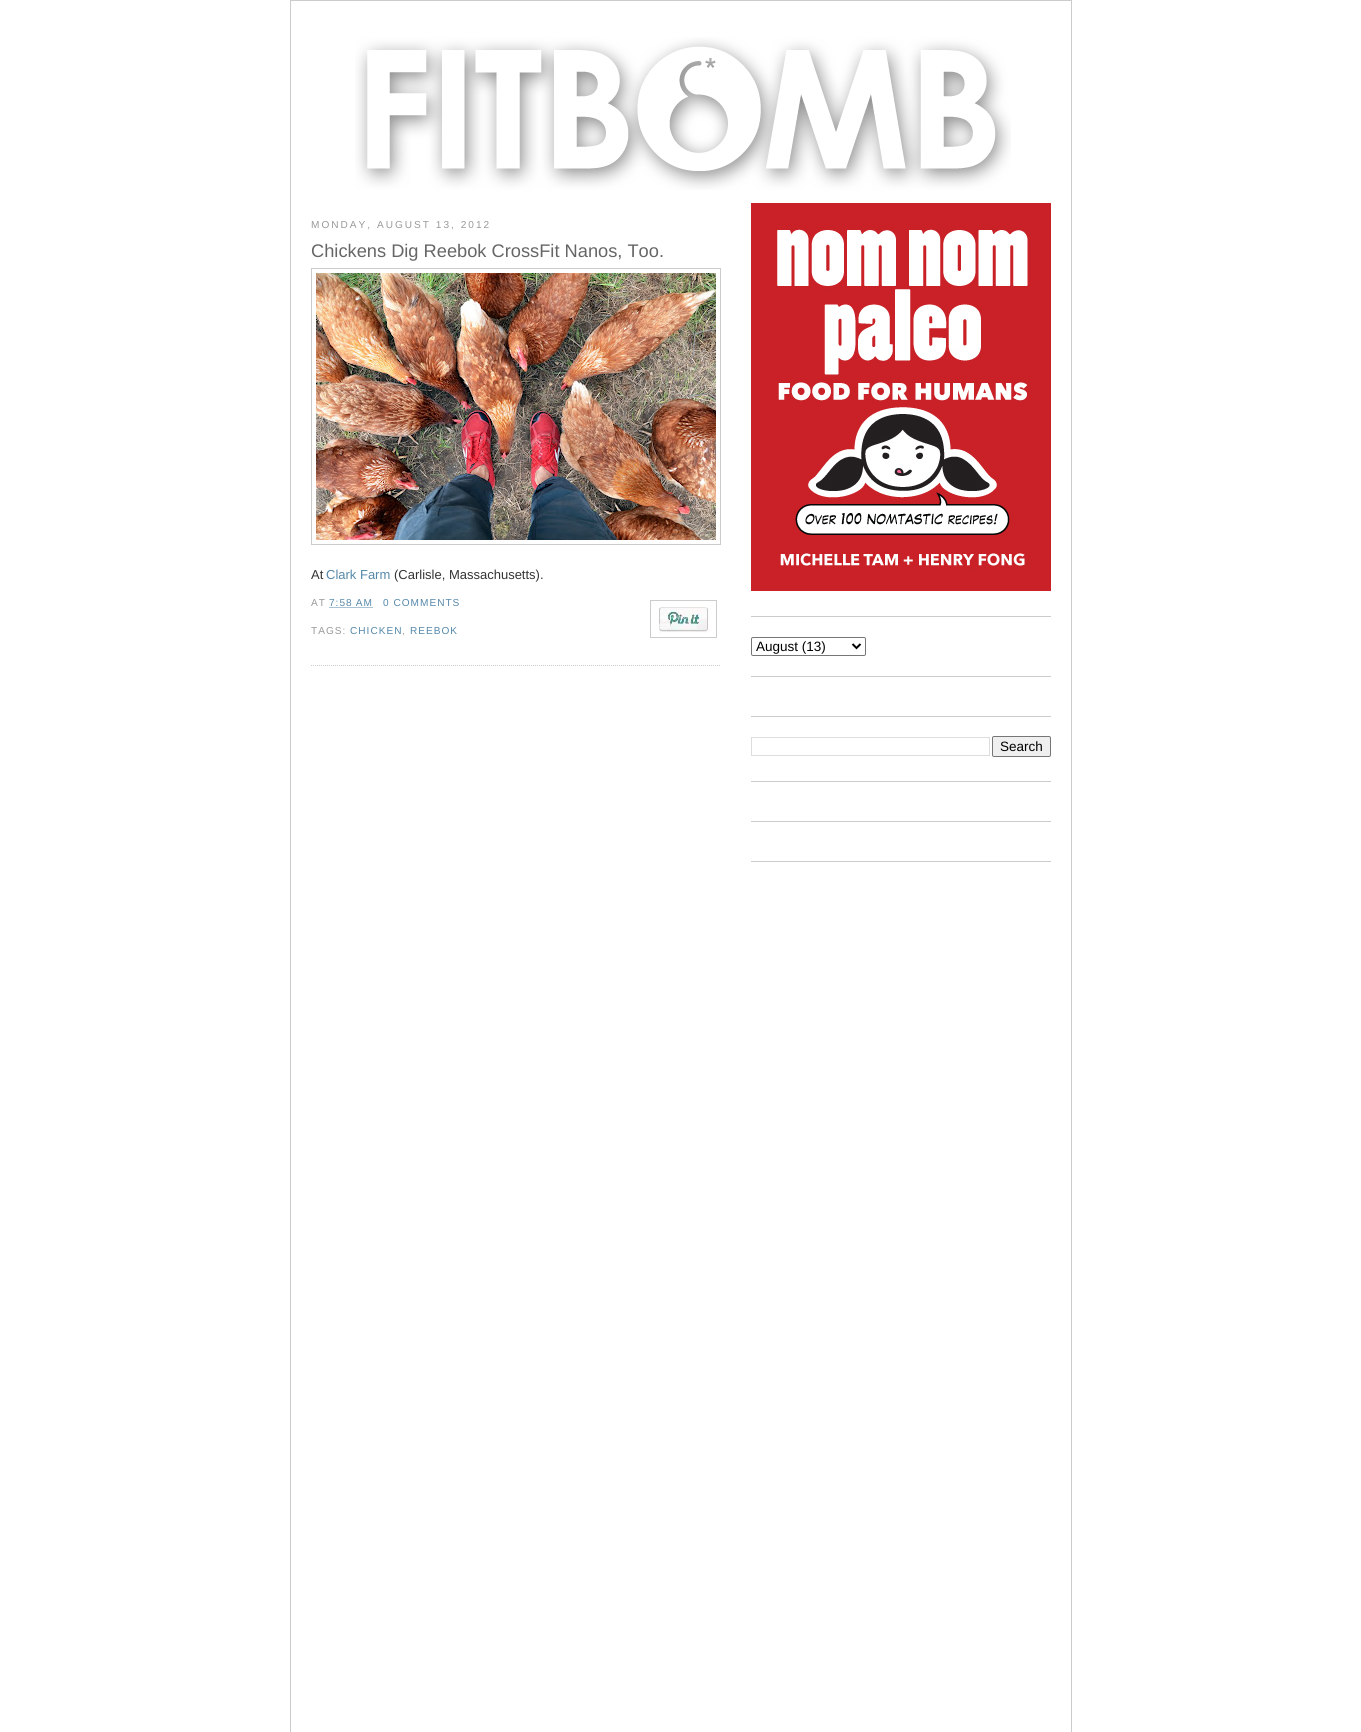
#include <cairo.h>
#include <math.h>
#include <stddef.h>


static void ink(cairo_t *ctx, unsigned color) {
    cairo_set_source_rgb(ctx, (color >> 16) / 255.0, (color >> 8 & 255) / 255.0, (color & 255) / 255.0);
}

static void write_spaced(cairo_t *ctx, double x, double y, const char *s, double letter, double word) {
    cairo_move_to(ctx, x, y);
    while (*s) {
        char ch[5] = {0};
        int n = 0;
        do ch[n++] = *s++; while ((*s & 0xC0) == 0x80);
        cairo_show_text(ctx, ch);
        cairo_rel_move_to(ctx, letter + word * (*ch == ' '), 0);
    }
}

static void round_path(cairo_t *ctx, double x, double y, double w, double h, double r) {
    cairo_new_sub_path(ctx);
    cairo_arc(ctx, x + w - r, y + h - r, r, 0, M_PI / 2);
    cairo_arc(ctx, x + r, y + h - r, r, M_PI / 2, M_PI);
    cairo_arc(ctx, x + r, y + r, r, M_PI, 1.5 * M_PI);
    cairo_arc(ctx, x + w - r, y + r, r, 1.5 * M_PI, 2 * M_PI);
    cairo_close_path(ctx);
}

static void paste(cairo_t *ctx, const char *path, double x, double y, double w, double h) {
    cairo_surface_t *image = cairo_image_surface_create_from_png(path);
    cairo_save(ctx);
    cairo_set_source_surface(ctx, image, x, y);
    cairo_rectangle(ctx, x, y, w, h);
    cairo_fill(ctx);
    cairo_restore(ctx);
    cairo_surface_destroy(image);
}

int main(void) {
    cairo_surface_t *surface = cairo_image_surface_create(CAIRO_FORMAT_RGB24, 1361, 1732);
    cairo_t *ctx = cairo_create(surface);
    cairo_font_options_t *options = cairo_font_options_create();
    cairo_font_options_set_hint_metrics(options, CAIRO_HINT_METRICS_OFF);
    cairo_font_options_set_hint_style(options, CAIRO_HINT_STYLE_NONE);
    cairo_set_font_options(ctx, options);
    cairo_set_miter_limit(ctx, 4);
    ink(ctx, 0xFFFFFF);
    cairo_paint(ctx);
    cairo_rectangle(ctx, 290.5, 0.5, 781, 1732);
    ink(ctx, 0xCCCCCC);
    cairo_set_line_width(ctx, 1);
    cairo_stroke(ctx);
    paste(ctx, "media/1.png", 355, 37, 656, 153);
    cairo_select_font_face(ctx, "Liberation Sans", CAIRO_FONT_SLANT_NORMAL, CAIRO_FONT_WEIGHT_NORMAL);
    cairo_set_font_size(ctx, 10.1);
    ink(ctx, 0x999999);
    write_spaced(ctx, 311, 228, "MONDAY, AUGUST 13, 2012", 2, 0);
    cairo_new_path(ctx);
    cairo_move_to(ctx, 311, 665.5);
    cairo_line_to(ctx, 721, 665.5);
    ink(ctx, 0xCCCCCC);
    cairo_set_dash(ctx, (double[]){1, 1}, 2, 0);
    cairo_stroke(ctx);
    cairo_set_font_size(ctx, 18.25);
    ink(ctx, 0x666666);
    cairo_move_to(ctx, 311, 257);
    cairo_show_text(ctx, "Chickens Dig Reebok CrossFit Nanos, Too.");
    cairo_rectangle(ctx, 311.5, 268.5, 409, 276);
    ink(ctx, 0xCCCCCC);
    cairo_set_dash(ctx, NULL, 0, 0);
    cairo_stroke(ctx);
    paste(ctx, "media/2.png", 316, 273, 400, 267);
    cairo_set_font_size(ctx, 13);
    ink(ctx, 0x333333);
    cairo_move_to(ctx, 311, 579);
    cairo_show_text(ctx, "At");
    ink(ctx, 0x5588AA);
    cairo_move_to(ctx, 326, 579);
    cairo_show_text(ctx, "Clark Farm");
    ink(ctx, 0x333333);
    cairo_move_to(ctx, 394, 579);
    cairo_show_text(ctx, "(Carlisle, Massachusetts).");
    cairo_set_font_size(ctx, 10.1);
    ink(ctx, 0x999999);
    write_spaced(ctx, 311, 606, "AT", 1, 0);
    ink(ctx, 0x5588AA);
    write_spaced(ctx, 329, 606, "7:58 AM", 1, 0);
    cairo_new_path(ctx);
    cairo_move_to(ctx, 329.5, 607.5);
    cairo_line_to(ctx, 373.5, 607.5);
    cairo_set_dash(ctx, (double[]){1, 1}, 2, 0);
    cairo_stroke(ctx);
    write_spaced(ctx, 383, 606, "0 COMMENTS", 1, 0);
    cairo_rectangle(ctx, 650.5, 600.5, 66, 37);
    ink(ctx, 0xCCCCCC);
    cairo_set_dash(ctx, NULL, 0, 0);
    cairo_stroke(ctx);
    paste(ctx, "media/3.png", 659, 605, 52, 28);
    ink(ctx, 0x999999);
    write_spaced(ctx, 311, 634, "TAGS:", 1, 0);
    ink(ctx, 0x5588AA);
    write_spaced(ctx, 350, 634, "CHICKEN", 1, 0);
    ink(ctx, 0x999999);
    write_spaced(ctx, 402, 634, ",", 1, 0);
    ink(ctx, 0x5588AA);
    write_spaced(ctx, 410, 634, "REEBOK", 1, 0);
    ink(ctx, 0xCCCCCC);
    cairo_rectangle(ctx, 751, 616, 300, 1);
    cairo_fill(ctx);
    paste(ctx, "media/4.png", 751, 203, 300, 388);
    cairo_rectangle(ctx, 751, 676, 300, 1);
    cairo_fill(ctx);
    round_path(ctx, 751.5, 637.5, 114, 18, 1.5);
    ink(ctx, 0x767676);
    cairo_stroke(ctx);
    cairo_new_path(ctx);
    cairo_move_to(ctx, 852.5, 644);
    cairo_line_to(ctx, 856.5, 648);
    cairo_line_to(ctx, 860.5, 644);
    ink(ctx, 0x000000);
    cairo_set_line_width(ctx, 2);
    cairo_stroke(ctx);
    cairo_set_font_size(ctx, 13.5);
    cairo_move_to(ctx, 756, 651);
    cairo_show_text(ctx, "August (13)");
    ink(ctx, 0xCCCCCC);
    cairo_rectangle(ctx, 751, 716, 300, 1);
    cairo_fill(ctx);
    cairo_rectangle(ctx, 751, 781, 300, 1);
    cairo_fill(ctx);
    cairo_rectangle(ctx, 751.5, 737.5, 238, 18);
    ink(ctx, 0xDDDDDD);
    cairo_set_line_width(ctx, 1);
    cairo_stroke(ctx);
    ink(ctx, 0xEFEFEF);
    round_path(ctx, 992.5, 736.5, 58, 20, 1.5);
    cairo_fill_preserve(ctx);
    ink(ctx, 0x767676);
    cairo_stroke(ctx);
    ink(ctx, 0x000000);
    cairo_move_to(ctx, 1000, 751);
    cairo_show_text(ctx, "Search");
    ink(ctx, 0xCCCCCC);
    cairo_rectangle(ctx, 751, 821, 300, 1);
    cairo_fill(ctx);
    cairo_rectangle(ctx, 751, 861, 300, 1);
    cairo_fill(ctx);
    cairo_surface_write_to_png(surface, "image.png");
    cairo_font_options_destroy(options);
    cairo_destroy(ctx);
    cairo_surface_destroy(surface);
    return 0;
}
